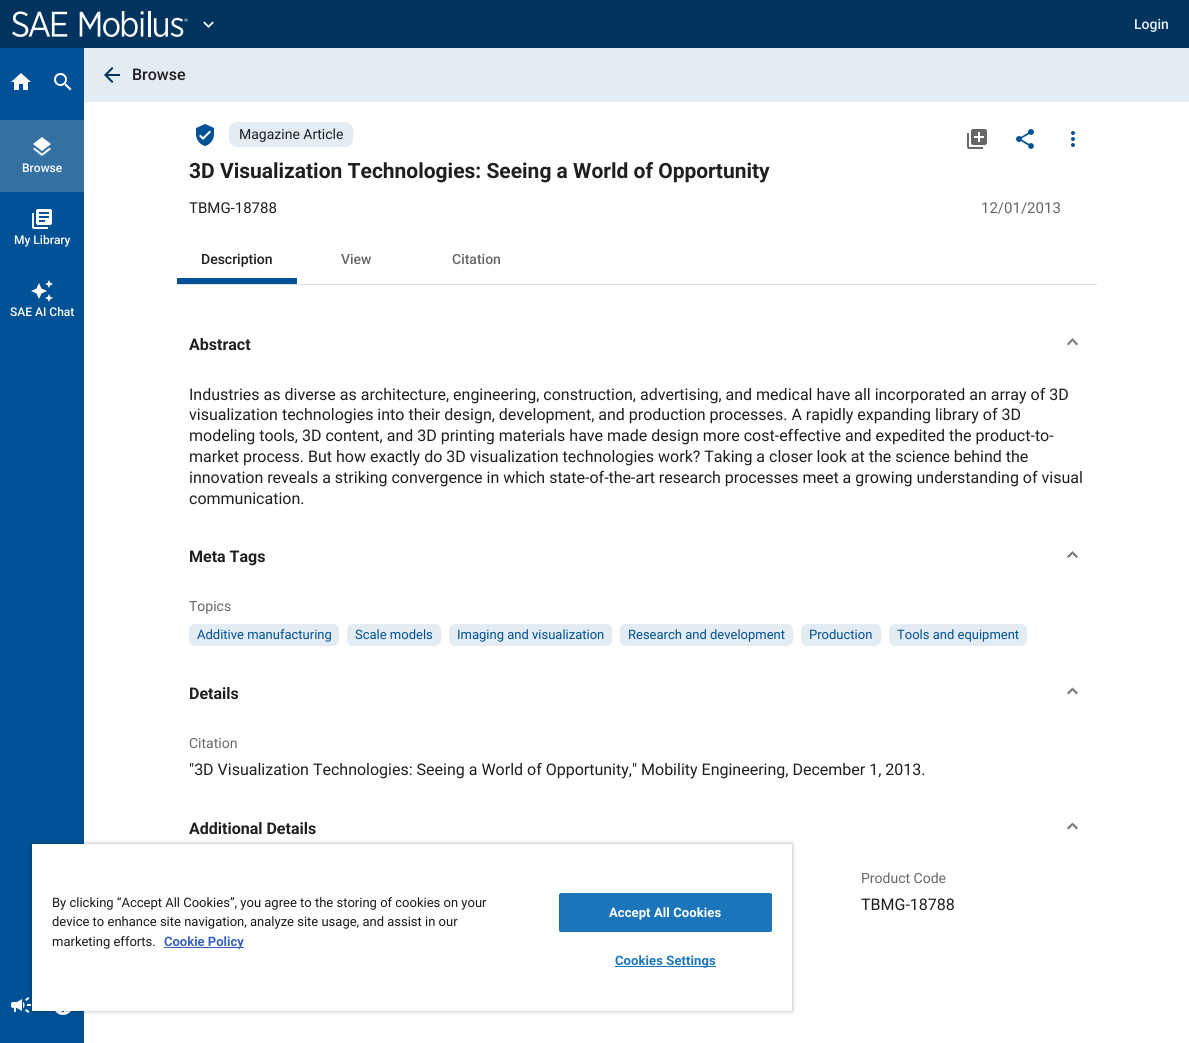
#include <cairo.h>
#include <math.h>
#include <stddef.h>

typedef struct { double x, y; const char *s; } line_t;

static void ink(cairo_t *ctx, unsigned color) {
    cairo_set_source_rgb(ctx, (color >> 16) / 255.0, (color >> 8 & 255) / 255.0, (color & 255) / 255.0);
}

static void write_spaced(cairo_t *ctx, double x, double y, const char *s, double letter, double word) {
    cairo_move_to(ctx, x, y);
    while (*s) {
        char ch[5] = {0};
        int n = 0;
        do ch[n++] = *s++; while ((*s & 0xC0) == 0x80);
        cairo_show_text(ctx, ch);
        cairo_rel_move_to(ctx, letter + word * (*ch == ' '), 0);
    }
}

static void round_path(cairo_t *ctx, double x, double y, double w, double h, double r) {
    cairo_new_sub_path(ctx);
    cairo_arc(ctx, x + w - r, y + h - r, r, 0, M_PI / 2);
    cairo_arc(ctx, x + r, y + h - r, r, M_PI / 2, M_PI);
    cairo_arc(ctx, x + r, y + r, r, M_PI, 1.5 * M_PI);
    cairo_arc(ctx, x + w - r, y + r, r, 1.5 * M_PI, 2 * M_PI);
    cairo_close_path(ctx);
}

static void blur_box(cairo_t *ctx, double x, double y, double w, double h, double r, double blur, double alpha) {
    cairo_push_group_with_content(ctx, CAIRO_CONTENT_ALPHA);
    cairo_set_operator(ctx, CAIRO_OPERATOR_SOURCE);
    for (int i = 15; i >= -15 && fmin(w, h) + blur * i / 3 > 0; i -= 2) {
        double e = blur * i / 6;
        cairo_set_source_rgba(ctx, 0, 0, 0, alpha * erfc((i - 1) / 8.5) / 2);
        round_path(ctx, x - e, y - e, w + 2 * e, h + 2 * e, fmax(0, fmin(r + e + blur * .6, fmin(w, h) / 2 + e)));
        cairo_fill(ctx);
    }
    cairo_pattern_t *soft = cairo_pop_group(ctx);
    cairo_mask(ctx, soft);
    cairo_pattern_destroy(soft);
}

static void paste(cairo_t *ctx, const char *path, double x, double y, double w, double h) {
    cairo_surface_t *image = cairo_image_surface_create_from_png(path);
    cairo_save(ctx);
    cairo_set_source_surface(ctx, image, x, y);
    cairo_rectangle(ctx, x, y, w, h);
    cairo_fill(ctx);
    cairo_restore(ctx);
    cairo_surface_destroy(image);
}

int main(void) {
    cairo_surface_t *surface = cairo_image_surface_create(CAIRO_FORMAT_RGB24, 1189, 1043);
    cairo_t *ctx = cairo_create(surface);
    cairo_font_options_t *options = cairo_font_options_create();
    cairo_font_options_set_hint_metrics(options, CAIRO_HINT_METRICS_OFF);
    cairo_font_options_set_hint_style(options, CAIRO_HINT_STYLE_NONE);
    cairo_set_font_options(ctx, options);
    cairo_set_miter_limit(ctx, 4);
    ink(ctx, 0xFFFFFF);
    cairo_paint(ctx);
    ink(ctx, 0x00335D);
    cairo_rectangle(ctx, 0, 0, 1189, 48);
    cairo_fill(ctx);
    paste(ctx, "media/1.png", 12, 11, 176, 26);
    paste(ctx, "media/2.png", 203, 21, 11, 7);
    cairo_select_font_face(ctx, "Roboto Medium", CAIRO_FONT_SLANT_NORMAL, CAIRO_FONT_WEIGHT_NORMAL);
    cairo_set_font_size(ctx, 14);
    ink(ctx, 0xE9F0F6);
    cairo_move_to(ctx, 1134, 29);
    cairo_show_text(ctx, "Login");
    ink(ctx, 0x005195);
    cairo_rectangle(ctx, 0, 48, 84, 995);
    cairo_fill(ctx);
    paste(ctx, "media/3.png", 11, 73, 20, 17);
    paste(ctx, "media/4.png", 54, 73, 18, 18);
    ink(ctx, 0x3471A2);
    cairo_rectangle(ctx, 0, 120, 84, 72);
    cairo_fill(ctx);
    paste(ctx, "media/5.png", 33, 137, 18, 19);
    cairo_set_font_size(ctx, 12);
    ink(ctx, 0xFFFFFF);
    cairo_move_to(ctx, 22, 172);
    cairo_show_text(ctx, "Browse");
    paste(ctx, "media/6.png", 32, 209, 20, 20);
    cairo_move_to(ctx, 14, 244);
    cairo_show_text(ctx, "My Library");
    paste(ctx, "media/7.png", 31, 280, 22, 22);
    cairo_move_to(ctx, 10, 316);
    cairo_show_text(ctx, "SAE AI Chat");
    paste(ctx, "media/8.png", 11, 997, 20, 16);
    paste(ctx, "media/9.png", 55, 1011, 16, 4);
    ink(ctx, 0xE3EBF3);
    cairo_rectangle(ctx, 84, 48, 1105, 54);
    cairo_fill(ctx);
    paste(ctx, "media/10.png", 104, 67, 16, 16);
    cairo_set_font_size(ctx, 16);
    ink(ctx, 0x1E1F20);
    cairo_move_to(ctx, 132, 80);
    cairo_show_text(ctx, "Browse");
    paste(ctx, "media/11.png", 196, 124, 18, 22);
    ink(ctx, 0xE3EBF3);
    round_path(ctx, 229, 122, 124, 25, 8);
    cairo_fill(ctx);
    cairo_select_font_face(ctx, "Roboto", CAIRO_FONT_SLANT_NORMAL, CAIRO_FONT_WEIGHT_NORMAL);
    cairo_set_font_size(ctx, 14);
    ink(ctx, 0x1E1F20);
    cairo_move_to(ctx, 239, 139);
    cairo_show_text(ctx, "Magazine Article");
    paste(ctx, "media/12.png", 967, 129, 20, 20);
    paste(ctx, "media/13.png", 1016, 129, 18, 20);
    paste(ctx, "media/14.png", 1071, 131, 4, 16);
    cairo_select_font_face(ctx, "Roboto", CAIRO_FONT_SLANT_NORMAL, CAIRO_FONT_WEIGHT_BOLD);
    cairo_set_font_size(ctx, 21);
    cairo_move_to(ctx, 189, 178);
    cairo_show_text(ctx, "3D Visualization Technologies: Seeing a World of Opportunity");
    cairo_select_font_face(ctx, "Roboto", CAIRO_FONT_SLANT_NORMAL, CAIRO_FONT_WEIGHT_NORMAL);
    cairo_set_font_size(ctx, 15);
    cairo_move_to(ctx, 189, 213);
    cairo_show_text(ctx, "TBMG-18788");
    ink(ctx, 0x666666);
    cairo_move_to(ctx, 981, 213);
    cairo_show_text(ctx, "12/01/2013");
    ink(ctx, 0xE0E0E0);
    cairo_rectangle(ctx, 177, 284, 920, 1);
    cairo_fill(ctx);
    cairo_select_font_face(ctx, "Roboto Medium", CAIRO_FONT_SLANT_NORMAL, CAIRO_FONT_WEIGHT_NORMAL);
    cairo_set_font_size(ctx, 14);
    ink(ctx, 0x1E1F20);
    cairo_move_to(ctx, 201, 264);
    cairo_show_text(ctx, "Description");
    ink(ctx, 0x666666);
    cairo_move_to(ctx, 341, 264);
    cairo_show_text(ctx, "View");
    cairo_move_to(ctx, 452, 264);
    cairo_show_text(ctx, "Citation");
    ink(ctx, 0x005195);
    cairo_rectangle(ctx, 177, 278, 120, 6);
    cairo_fill(ctx);
    cairo_select_font_face(ctx, "Roboto", CAIRO_FONT_SLANT_NORMAL, CAIRO_FONT_WEIGHT_BOLD);
    cairo_set_font_size(ctx, 16);
    ink(ctx, 0x1E1F20);
    cairo_move_to(ctx, 189, 350);
    cairo_show_text(ctx, "Abstract");
    ink(ctx, 0x757575);
    cairo_new_path(ctx);
    cairo_move_to(ctx, 1067, 344);
    cairo_line_to(ctx, 1072.5, 338);
    cairo_line_to(ctx, 1072.5, 341);
    cairo_line_to(ctx, 1068.5, 345.5);
    cairo_close_path(ctx);
    cairo_fill(ctx);
    cairo_set_source_rgba(ctx, 0, 0, 0, 0.54);
    cairo_new_path(ctx);
    cairo_move_to(ctx, 1072.5, 338);
    cairo_line_to(ctx, 1078, 344);
    cairo_line_to(ctx, 1076.5, 345.5);
    cairo_line_to(ctx, 1072.5, 341);
    cairo_close_path(ctx);
    cairo_fill(ctx);
    cairo_select_font_face(ctx, "Roboto", CAIRO_FONT_SLANT_NORMAL, CAIRO_FONT_WEIGHT_NORMAL);
    ink(ctx, 0x1E1F20);
    {
        static const line_t items[] = {
            {189, 400, "Industries as diverse as architecture, engineering, construction, advertising, and medical have all incorporated an array of 3D"},
            {189, 420, "visualization technologies into their design, development, and production processes. A rapidly expanding library of 3D"},
            {189, 441, "modeling tools, 3D content, and 3D printing materials have made design more cost-effective and expedited the product-to-"},
            {189, 462, "market process. But how exactly do 3D visualization technologies work? Taking a closer look at the science behind the"},
            {189, 483, "innovation reveals a striking convergence in which state-of-the-art research processes meet a growing understanding of visual"},
            {189, 504, "communication."},
        };
        for (size_t i = 0; i < sizeof items / sizeof *items; i++) {
            cairo_move_to(ctx, items[i].x, items[i].y);
            cairo_show_text(ctx, items[i].s);
        }
    }
    cairo_select_font_face(ctx, "Roboto", CAIRO_FONT_SLANT_NORMAL, CAIRO_FONT_WEIGHT_BOLD);
    cairo_move_to(ctx, 189, 562);
    cairo_show_text(ctx, "Meta Tags");
    ink(ctx, 0x757575);
    cairo_new_path(ctx);
    cairo_move_to(ctx, 1067, 556.5);
    cairo_line_to(ctx, 1072.5, 551);
    cairo_line_to(ctx, 1072.5, 554);
    cairo_line_to(ctx, 1068.5, 558);
    cairo_close_path(ctx);
    cairo_fill(ctx);
    cairo_set_source_rgba(ctx, 0, 0, 0, 0.54);
    cairo_new_path(ctx);
    cairo_move_to(ctx, 1072.5, 551);
    cairo_line_to(ctx, 1078, 556.5);
    cairo_line_to(ctx, 1076.5, 558);
    cairo_line_to(ctx, 1072.5, 554);
    cairo_close_path(ctx);
    cairo_fill(ctx);
    cairo_select_font_face(ctx, "Roboto", CAIRO_FONT_SLANT_NORMAL, CAIRO_FONT_WEIGHT_NORMAL);
    cairo_set_font_size(ctx, 14);
    ink(ctx, 0x666666);
    cairo_move_to(ctx, 189, 611);
    cairo_show_text(ctx, "Topics");
    ink(ctx, 0xE3EBF3);
    round_path(ctx, 189, 624, 150, 22, 6);
    cairo_fill(ctx);
    cairo_set_font_size(ctx, 13);
    ink(ctx, 0x005195);
    cairo_move_to(ctx, 197, 639);
    cairo_show_text(ctx, "Additive manufacturing");
    ink(ctx, 0xE3EBF3);
    round_path(ctx, 347, 624, 94, 22, 6);
    cairo_fill(ctx);
    ink(ctx, 0x005195);
    cairo_move_to(ctx, 355, 639);
    cairo_show_text(ctx, "Scale models");
    ink(ctx, 0xE3EBF3);
    round_path(ctx, 449, 624, 163, 22, 6);
    cairo_fill(ctx);
    ink(ctx, 0x005195);
    cairo_move_to(ctx, 457, 639);
    cairo_show_text(ctx, "Imaging and visualization");
    ink(ctx, 0xE3EBF3);
    round_path(ctx, 620, 624, 173, 22, 6);
    cairo_fill(ctx);
    ink(ctx, 0x005195);
    cairo_move_to(ctx, 628, 639);
    cairo_show_text(ctx, "Research and development");
    ink(ctx, 0xE3EBF3);
    round_path(ctx, 801, 624, 80, 22, 6);
    cairo_fill(ctx);
    ink(ctx, 0x005195);
    cairo_move_to(ctx, 809, 639);
    cairo_show_text(ctx, "Production");
    ink(ctx, 0xE3EBF3);
    round_path(ctx, 889, 624, 138, 22, 6);
    cairo_fill(ctx);
    ink(ctx, 0x005195);
    cairo_move_to(ctx, 897, 639);
    cairo_show_text(ctx, "Tools and equipment");
    cairo_select_font_face(ctx, "Roboto", CAIRO_FONT_SLANT_NORMAL, CAIRO_FONT_WEIGHT_BOLD);
    cairo_set_font_size(ctx, 16);
    ink(ctx, 0x1E1F20);
    cairo_move_to(ctx, 189, 699);
    cairo_show_text(ctx, "Details");
    ink(ctx, 0x757575);
    cairo_new_path(ctx);
    cairo_move_to(ctx, 1067, 693);
    cairo_line_to(ctx, 1072.5, 687.5);
    cairo_line_to(ctx, 1072.5, 690.5);
    cairo_line_to(ctx, 1068.5, 694.5);
    cairo_close_path(ctx);
    cairo_fill(ctx);
    cairo_set_source_rgba(ctx, 0, 0, 0, 0.54);
    cairo_new_path(ctx);
    cairo_move_to(ctx, 1072.5, 687.5);
    cairo_line_to(ctx, 1078, 693);
    cairo_line_to(ctx, 1076.5, 694.5);
    cairo_line_to(ctx, 1072.5, 690.5);
    cairo_close_path(ctx);
    cairo_fill(ctx);
    cairo_select_font_face(ctx, "Roboto", CAIRO_FONT_SLANT_NORMAL, CAIRO_FONT_WEIGHT_NORMAL);
    cairo_set_font_size(ctx, 14);
    ink(ctx, 0x666666);
    cairo_move_to(ctx, 189, 748);
    cairo_show_text(ctx, "Citation");
    cairo_set_font_size(ctx, 16);
    ink(ctx, 0x1E1F20);
    cairo_move_to(ctx, 189, 775);
    cairo_show_text(ctx, "\"3D Visualization Technologies: Seeing a World of Opportunity,\" Mobility Engineering, December 1, 2013.");
    cairo_select_font_face(ctx, "Roboto", CAIRO_FONT_SLANT_NORMAL, CAIRO_FONT_WEIGHT_BOLD);
    cairo_move_to(ctx, 189, 834);
    cairo_show_text(ctx, "Additional Details");
    ink(ctx, 0x757575);
    cairo_new_path(ctx);
    cairo_move_to(ctx, 1067, 828);
    cairo_line_to(ctx, 1072.5, 822.5);
    cairo_line_to(ctx, 1072.5, 825.5);
    cairo_line_to(ctx, 1068.5, 829.5);
    cairo_close_path(ctx);
    cairo_fill(ctx);
    cairo_set_source_rgba(ctx, 0, 0, 0, 0.54);
    cairo_new_path(ctx);
    cairo_move_to(ctx, 1072.5, 822.5);
    cairo_line_to(ctx, 1078, 828);
    cairo_line_to(ctx, 1076.5, 829.5);
    cairo_line_to(ctx, 1072.5, 825.5);
    cairo_close_path(ctx);
    cairo_fill(ctx);
    cairo_select_font_face(ctx, "Roboto", CAIRO_FONT_SLANT_NORMAL, CAIRO_FONT_WEIGHT_NORMAL);
    cairo_set_font_size(ctx, 14);
    ink(ctx, 0x666666);
    cairo_move_to(ctx, 861, 883);
    cairo_show_text(ctx, "Product Code");
    cairo_set_font_size(ctx, 16);
    ink(ctx, 0x1E1F20);
    cairo_move_to(ctx, 861, 910);
    cairo_show_text(ctx, "TBMG-18788");
    ink(ctx, 0x000000);
    blur_box(ctx, 32, 844, 760, 167, 0, 2, 0.35);
    ink(ctx, 0xFFFFFF);
    cairo_rectangle(ctx, 32, 844, 760, 167);
    cairo_fill(ctx);
    cairo_set_font_size(ctx, 13);
    ink(ctx, 0x1A1A1A);
    {
        static const line_t items[] = {
            {52, 907, "By clicking “Accept All Cookies”, you agree to the storing of cookies on your"},
            {52, 926, "device to enhance site navigation, analyze site usage, and assist in our"},
            {52, 946, "marketing efforts."},
        };
        for (size_t i = 0; i < sizeof items / sizeof *items; i++) {
            cairo_move_to(ctx, items[i].x, items[i].y);
            cairo_show_text(ctx, items[i].s);
        }
    }
    ink(ctx, 0x3860BE);
    cairo_rectangle(ctx, 164, 947, 80, 1);
    cairo_fill(ctx);
    cairo_select_font_face(ctx, "Roboto", CAIRO_FONT_SLANT_NORMAL, CAIRO_FONT_WEIGHT_BOLD);
    cairo_move_to(ctx, 164, 946);
    cairo_show_text(ctx, "Cookie Policy");
    ink(ctx, 0x1B75BB);
    round_path(ctx, 559.5, 893.5, 212, 38, 1.5);
    cairo_fill_preserve(ctx);
    cairo_set_line_width(ctx, 1);
    cairo_stroke(ctx);
    ink(ctx, 0xFFFFFF);
    write_spaced(ctx, 609, 917, "Accept All Cookies", 0.1, 0);
    ink(ctx, 0x1B75BB);
    cairo_rectangle(ctx, 615, 966, 101, 1);
    cairo_fill(ctx);
    write_spaced(ctx, 615, 965, "Cookies Settings", 0.1, 0);
    cairo_surface_write_to_png(surface, "image.png");
    cairo_font_options_destroy(options);
    cairo_destroy(ctx);
    cairo_surface_destroy(surface);
    return 0;
}
